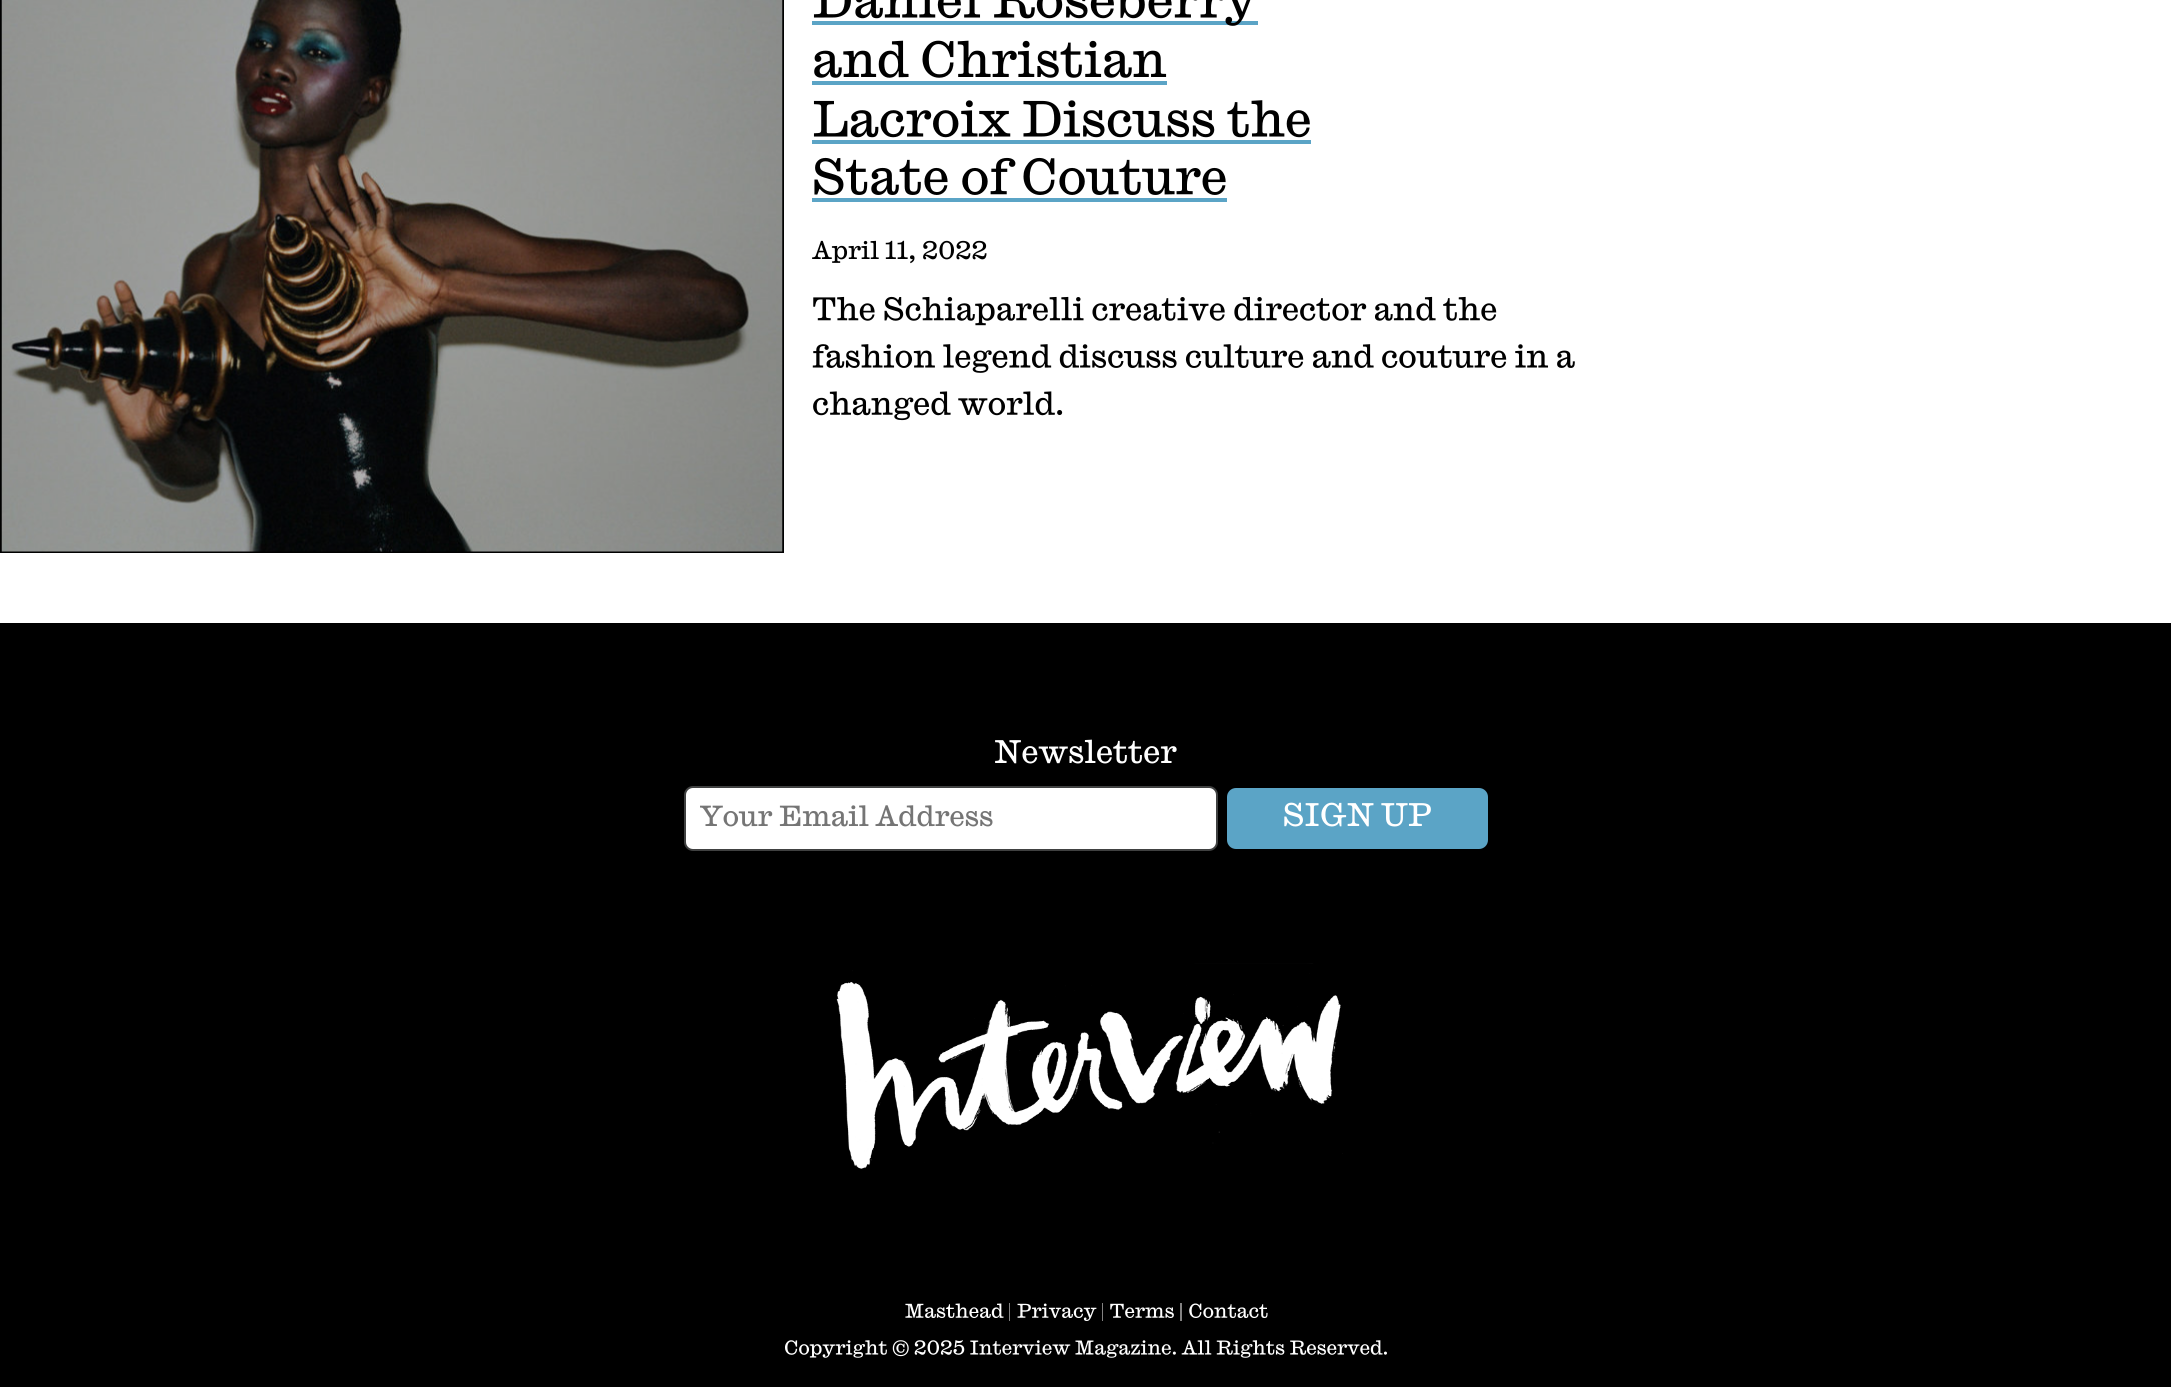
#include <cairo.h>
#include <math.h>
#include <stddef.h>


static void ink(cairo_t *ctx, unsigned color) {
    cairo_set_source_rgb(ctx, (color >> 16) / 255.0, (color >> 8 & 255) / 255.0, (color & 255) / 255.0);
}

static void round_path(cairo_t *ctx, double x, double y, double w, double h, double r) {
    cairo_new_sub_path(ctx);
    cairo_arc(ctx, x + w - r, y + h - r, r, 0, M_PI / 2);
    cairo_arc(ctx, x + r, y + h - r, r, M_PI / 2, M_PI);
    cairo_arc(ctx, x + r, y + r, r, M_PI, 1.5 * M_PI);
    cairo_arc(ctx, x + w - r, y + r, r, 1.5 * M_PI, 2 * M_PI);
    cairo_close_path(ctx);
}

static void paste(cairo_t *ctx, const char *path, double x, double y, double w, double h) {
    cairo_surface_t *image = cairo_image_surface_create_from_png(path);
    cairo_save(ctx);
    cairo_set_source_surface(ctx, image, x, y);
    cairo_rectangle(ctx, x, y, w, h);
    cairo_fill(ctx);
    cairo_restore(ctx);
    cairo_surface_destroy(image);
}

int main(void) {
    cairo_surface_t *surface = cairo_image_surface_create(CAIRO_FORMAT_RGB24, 2171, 1387);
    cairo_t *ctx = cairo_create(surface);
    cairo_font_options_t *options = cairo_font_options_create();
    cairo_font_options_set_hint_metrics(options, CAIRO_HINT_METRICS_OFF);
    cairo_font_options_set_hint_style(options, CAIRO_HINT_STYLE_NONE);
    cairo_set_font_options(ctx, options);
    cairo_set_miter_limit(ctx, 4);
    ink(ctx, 0xFFFFFF);
    cairo_paint(ctx);
    cairo_rectangle(ctx, 1, -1, 782, 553);
    ink(ctx, 0x000000);
    cairo_stroke(ctx);
    paste(ctx, "media/1.png", 1, 0, 782, 552);
    ink(ctx, 0x5BA4C6);
    cairo_rectangle(ctx, 812, 21, 446, 4);
    cairo_fill(ctx);
    paste(ctx, "media/2.png", 813, 0, 438, 26);
    paste(ctx, "media/3.png", 814, 40, 353, 38);
    cairo_rectangle(ctx, 812, 81, 355, 4);
    cairo_fill(ctx);
    paste(ctx, "media/4.png", 813, 100, 497, 38);
    cairo_rectangle(ctx, 812, 140, 499, 4);
    cairo_fill(ctx);
    paste(ctx, "media/5.png", 814, 157, 412, 38);
    cairo_rectangle(ctx, 812, 198, 415, 4);
    cairo_fill(ctx);
    paste(ctx, "media/6.png", 812, 240, 175, 24);
    paste(ctx, "media/7.png", 813, 296, 684, 30);
    paste(ctx, "media/8.png", 812, 344, 763, 29);
    paste(ctx, "media/9.png", 813, 391, 250, 30);
    ink(ctx, 0x000000);
    cairo_rectangle(ctx, 0, 623, 2171, 764);
    cairo_fill(ctx);
    paste(ctx, "media/10.png", 995, 739, 182, 25);
    ink(ctx, 0xFFFFFF);
    round_path(ctx, 685, 787, 532, 63, 8);
    cairo_fill_preserve(ctx);
    ink(ctx, 0x404141);
    cairo_stroke(ctx);
    paste(ctx, "media/11.png", 700, 805, 293, 22);
    ink(ctx, 0x5BA4C6);
    round_path(ctx, 1227, 788, 261, 61, 9);
    cairo_fill(ctx);
    paste(ctx, "media/12.png", 1284, 802, 147, 25);
    paste(ctx, "media/13.png", 836, 963, 507, 206);
    paste(ctx, "media/14.png", 905, 1303, 99, 15);
    ink(ctx, 0x838282);
    cairo_rectangle(ctx, 1009, 1303, 1, 18);
    cairo_fill(ctx);
    paste(ctx, "media/15.png", 1017, 1303, 80, 18);
    cairo_rectangle(ctx, 1102, 1303, 1, 18);
    cairo_fill(ctx);
    paste(ctx, "media/16.png", 1110, 1303, 64, 15);
    cairo_rectangle(ctx, 1180, 1303, 2, 18);
    cairo_fill(ctx);
    paste(ctx, "media/17.png", 1189, 1303, 79, 15);
    paste(ctx, "media/18.png", 785, 1340, 602, 18);
    cairo_surface_write_to_png(surface, "image.png");
    cairo_font_options_destroy(options);
    cairo_destroy(ctx);
    cairo_surface_destroy(surface);
    return 0;
}
